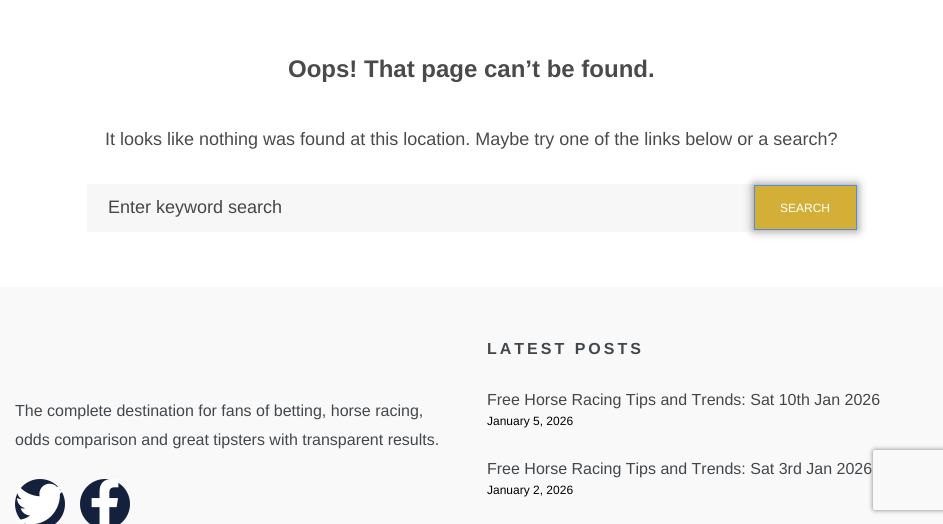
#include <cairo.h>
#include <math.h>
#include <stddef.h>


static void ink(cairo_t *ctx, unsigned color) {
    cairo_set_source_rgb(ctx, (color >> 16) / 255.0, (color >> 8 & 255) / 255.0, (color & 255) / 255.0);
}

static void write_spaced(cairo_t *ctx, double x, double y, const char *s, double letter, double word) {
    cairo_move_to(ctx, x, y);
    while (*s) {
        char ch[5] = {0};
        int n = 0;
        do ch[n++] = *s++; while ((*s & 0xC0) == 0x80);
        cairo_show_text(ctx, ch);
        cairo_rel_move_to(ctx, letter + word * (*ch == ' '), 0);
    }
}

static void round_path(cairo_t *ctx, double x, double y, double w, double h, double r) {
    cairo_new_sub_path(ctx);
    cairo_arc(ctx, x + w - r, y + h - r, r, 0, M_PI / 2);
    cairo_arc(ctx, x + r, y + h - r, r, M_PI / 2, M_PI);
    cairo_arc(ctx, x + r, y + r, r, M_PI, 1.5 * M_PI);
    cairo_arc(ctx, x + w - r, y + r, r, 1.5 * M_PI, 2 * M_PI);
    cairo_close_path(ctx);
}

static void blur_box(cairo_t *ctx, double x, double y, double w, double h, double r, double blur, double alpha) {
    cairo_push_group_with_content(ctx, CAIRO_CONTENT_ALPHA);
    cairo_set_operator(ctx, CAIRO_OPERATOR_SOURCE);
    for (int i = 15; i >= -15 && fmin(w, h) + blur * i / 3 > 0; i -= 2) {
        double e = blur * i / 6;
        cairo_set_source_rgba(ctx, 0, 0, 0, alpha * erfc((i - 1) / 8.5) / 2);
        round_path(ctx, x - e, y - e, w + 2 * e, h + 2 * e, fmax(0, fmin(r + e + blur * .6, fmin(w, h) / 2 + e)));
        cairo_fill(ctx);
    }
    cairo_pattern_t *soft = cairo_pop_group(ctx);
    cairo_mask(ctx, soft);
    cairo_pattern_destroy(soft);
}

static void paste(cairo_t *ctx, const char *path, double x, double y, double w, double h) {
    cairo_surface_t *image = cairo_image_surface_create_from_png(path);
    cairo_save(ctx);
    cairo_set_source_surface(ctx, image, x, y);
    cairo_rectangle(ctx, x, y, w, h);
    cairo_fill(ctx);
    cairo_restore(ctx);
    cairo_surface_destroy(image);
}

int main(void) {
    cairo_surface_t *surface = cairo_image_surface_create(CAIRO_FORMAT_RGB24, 943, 524);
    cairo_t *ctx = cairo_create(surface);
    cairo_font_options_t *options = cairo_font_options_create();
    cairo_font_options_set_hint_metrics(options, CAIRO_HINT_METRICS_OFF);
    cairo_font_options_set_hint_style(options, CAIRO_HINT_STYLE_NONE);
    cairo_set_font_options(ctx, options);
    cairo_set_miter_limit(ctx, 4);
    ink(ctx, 0xFFFFFF);
    cairo_paint(ctx);
    cairo_select_font_face(ctx, "Liberation Sans", CAIRO_FONT_SLANT_NORMAL, CAIRO_FONT_WEIGHT_BOLD);
    cairo_set_font_size(ctx, 24);
    ink(ctx, 0x4A4A4A);
    cairo_move_to(ctx, 288, 77);
    cairo_show_text(ctx, "Oops! That page can’t be found.");
    cairo_select_font_face(ctx, "Liberation Sans", CAIRO_FONT_SLANT_NORMAL, CAIRO_FONT_WEIGHT_NORMAL);
    cairo_set_font_size(ctx, 18);
    cairo_move_to(ctx, 105, 145);
    cairo_show_text(ctx, "It looks like nothing was found at this location. Maybe try one of the links below or a search?");
    ink(ctx, 0xF7F7F7);
    cairo_rectangle(ctx, 87, 184, 667, 48);
    cairo_fill(ctx);
    ink(ctx, 0x42474C);
    cairo_move_to(ctx, 108, 213);
    cairo_show_text(ctx, "Enter keyword search");
    ink(ctx, 0x000000);
    blur_box(ctx, 754, 185, 103, 45, 0, 5, 0.5);
    ink(ctx, 0xD4AF37);
    cairo_rectangle(ctx, 754.5, 185.5, 102, 44);
    cairo_fill_preserve(ctx);
    ink(ctx, 0x558DD9);
    cairo_set_line_width(ctx, 1);
    cairo_stroke(ctx);
    cairo_set_font_size(ctx, 12);
    ink(ctx, 0xFFFFFF);
    cairo_move_to(ctx, 780, 212);
    cairo_show_text(ctx, "SEARCH");
    ink(ctx, 0xF9F9F9);
    cairo_rectangle(ctx, 0, 287, 943, 237);
    cairo_fill(ctx);
    cairo_set_font_size(ctx, 16);
    ink(ctx, 0x42474C);
    cairo_move_to(ctx, 15, 416);
    cairo_show_text(ctx, "The complete destination for fans of betting, horse racing,");
    cairo_move_to(ctx, 15, 445);
    cairo_show_text(ctx, "odds comparison and great tipsters with transparent results.");
    ink(ctx, 0x14213D);
    cairo_new_path(ctx);
    cairo_arc(ctx, 40, 504, 25, 0, 2 * M_PI);
    cairo_fill(ctx);
    paste(ctx, "media/1.png", 17, 483, 47, 41);
    cairo_arc(ctx, 105, 504, 25, 0, 2 * M_PI);
    cairo_fill(ctx);
    paste(ctx, "media/2.png", 91, 479, 28, 45);
    cairo_select_font_face(ctx, "Liberation Sans", CAIRO_FONT_SLANT_NORMAL, CAIRO_FONT_WEIGHT_BOLD);
    ink(ctx, 0x42474C);
    write_spaced(ctx, 487, 354, "LATEST POSTS", 3, 0);
    cairo_select_font_face(ctx, "Liberation Sans", CAIRO_FONT_SLANT_NORMAL, CAIRO_FONT_WEIGHT_NORMAL);
    cairo_move_to(ctx, 487, 405);
    cairo_show_text(ctx, "Free Horse Racing Tips and Trends: Sat 10th Jan 2026");
    cairo_set_font_size(ctx, 12);
    ink(ctx, 0x000000);
    cairo_move_to(ctx, 487, 425);
    cairo_show_text(ctx, "January 5, 2026");
    cairo_set_font_size(ctx, 16);
    ink(ctx, 0x42474C);
    cairo_move_to(ctx, 487, 474);
    cairo_show_text(ctx, "Free Horse Racing Tips and Trends: Sat 3rd Jan 2026");
    cairo_set_font_size(ctx, 12);
    ink(ctx, 0x000000);
    cairo_move_to(ctx, 487, 494);
    cairo_show_text(ctx, "January 2, 2026");
    cairo_save(ctx);
    cairo_set_fill_rule(ctx, CAIRO_FILL_RULE_EVEN_ODD);
    cairo_new_path(ctx);
    cairo_move_to(ctx, 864, 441);
    cairo_line_to(ctx, 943, 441);
    cairo_line_to(ctx, 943, 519);
    cairo_line_to(ctx, 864, 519);
    cairo_close_path(ctx);
    cairo_move_to(ctx, 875, 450);
    cairo_line_to(ctx, 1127, 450);
    cairo_curve_to(ctx, 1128, 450, 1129, 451, 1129, 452);
    cairo_line_to(ctx, 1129, 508);
    cairo_curve_to(ctx, 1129, 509, 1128, 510, 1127, 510);
    cairo_line_to(ctx, 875, 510);
    cairo_curve_to(ctx, 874, 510, 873, 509, 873, 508);
    cairo_line_to(ctx, 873, 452);
    cairo_curve_to(ctx, 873, 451, 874, 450, 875, 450);
    cairo_close_path(ctx);
    cairo_clip(ctx);
    ink(ctx, 0x808080);
    blur_box(ctx, 873, 450, 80, 60, 2, 2.5, 1);
    cairo_restore(ctx);
    cairo_surface_write_to_png(surface, "image.png");
    cairo_font_options_destroy(options);
    cairo_destroy(ctx);
    cairo_surface_destroy(surface);
    return 0;
}
